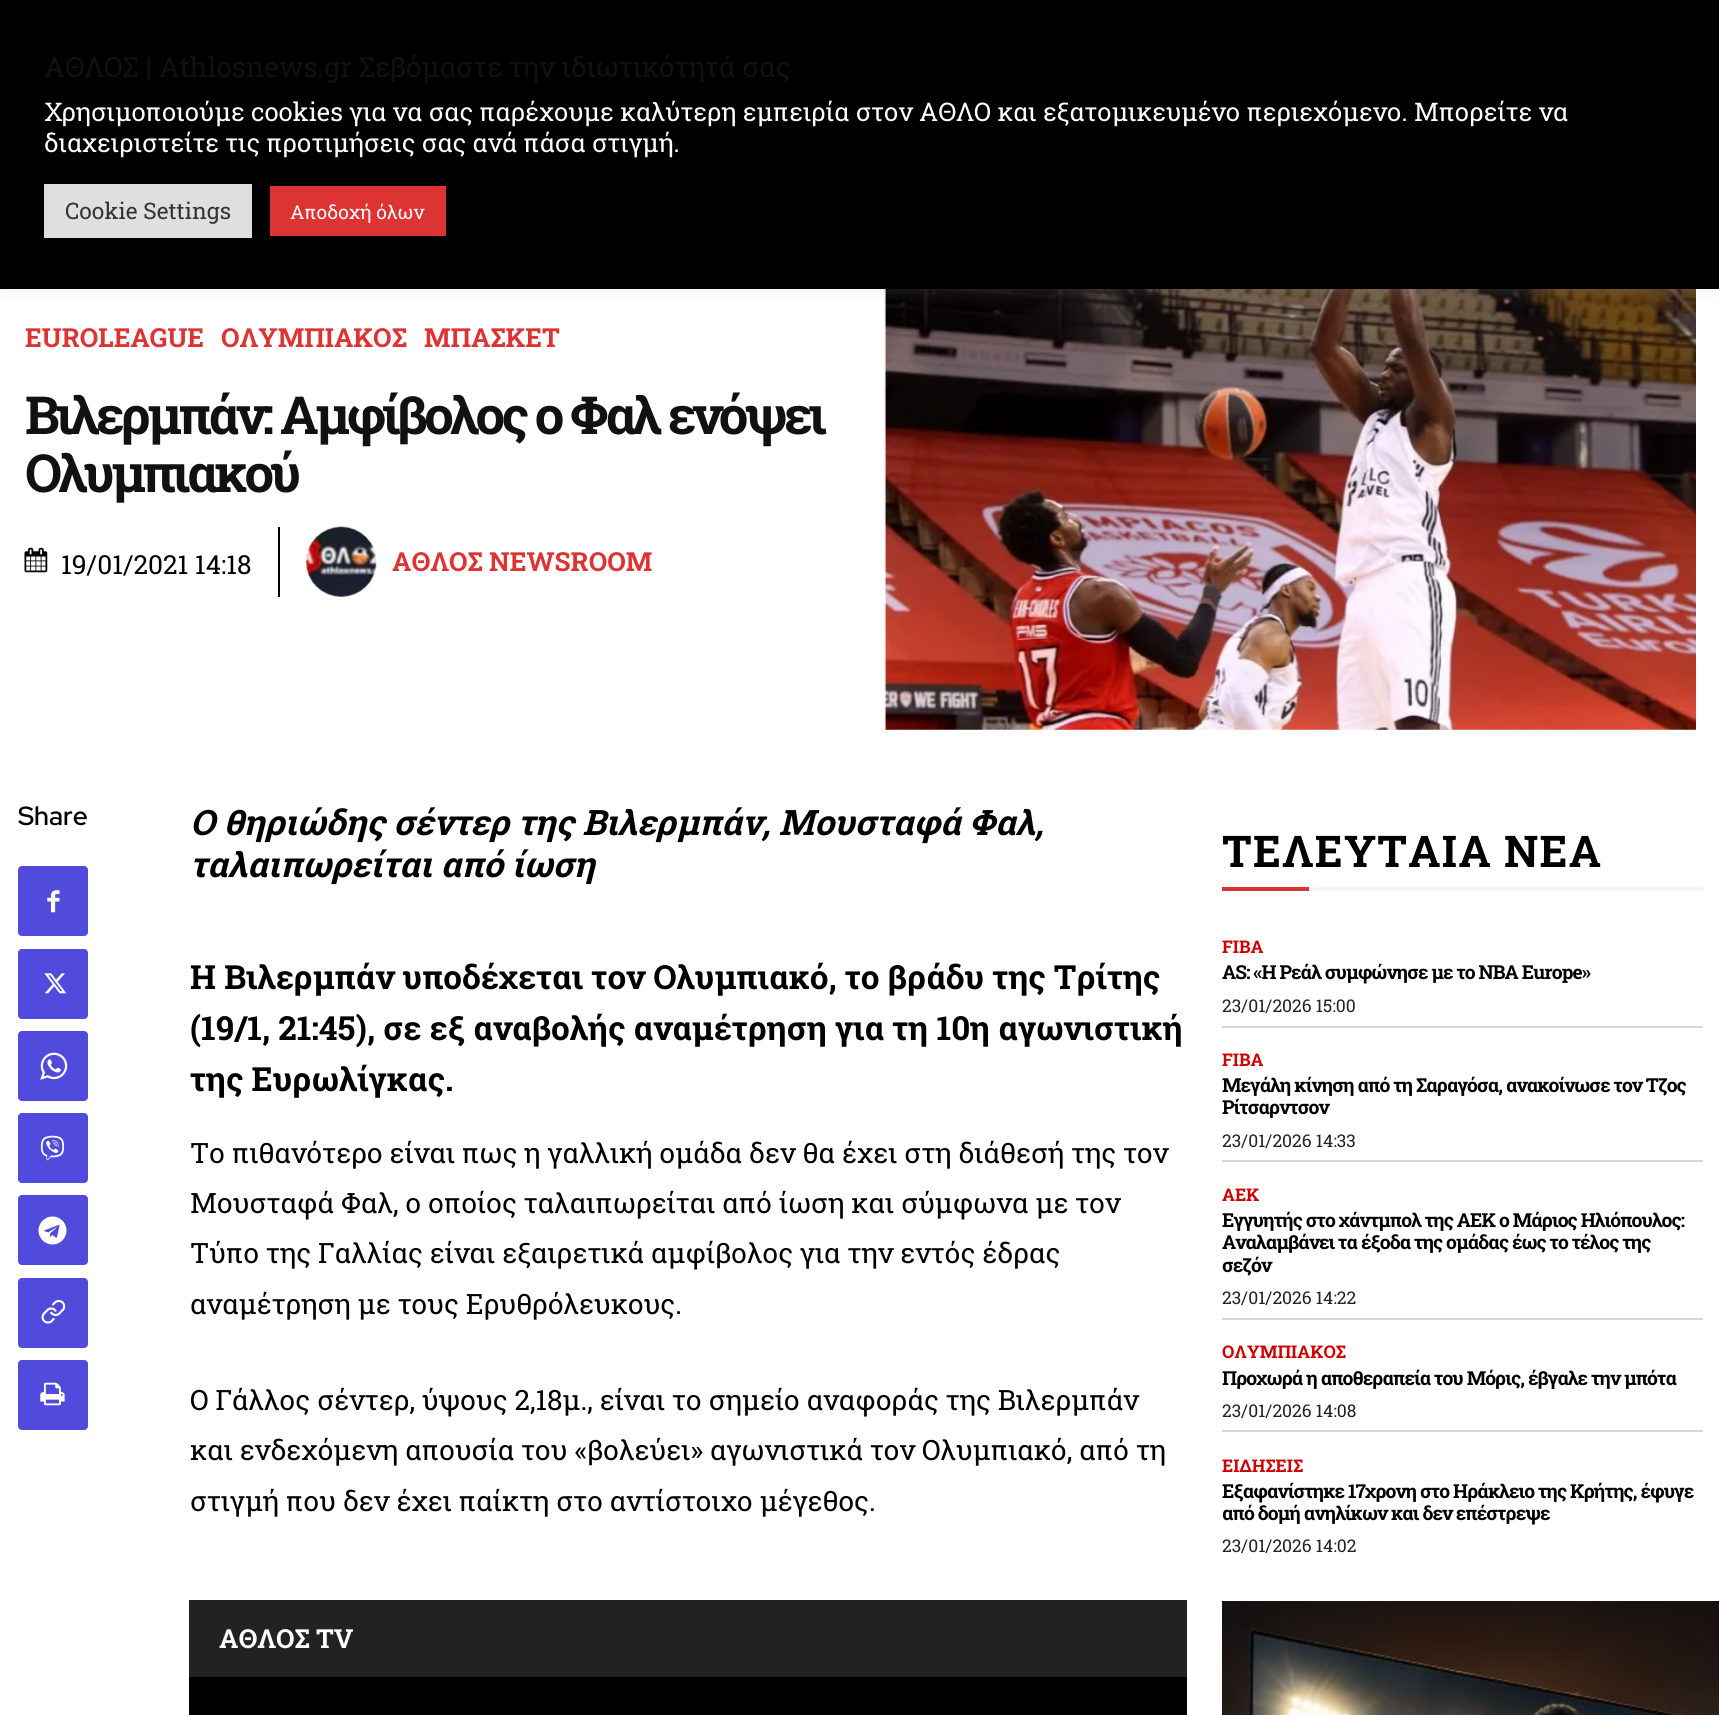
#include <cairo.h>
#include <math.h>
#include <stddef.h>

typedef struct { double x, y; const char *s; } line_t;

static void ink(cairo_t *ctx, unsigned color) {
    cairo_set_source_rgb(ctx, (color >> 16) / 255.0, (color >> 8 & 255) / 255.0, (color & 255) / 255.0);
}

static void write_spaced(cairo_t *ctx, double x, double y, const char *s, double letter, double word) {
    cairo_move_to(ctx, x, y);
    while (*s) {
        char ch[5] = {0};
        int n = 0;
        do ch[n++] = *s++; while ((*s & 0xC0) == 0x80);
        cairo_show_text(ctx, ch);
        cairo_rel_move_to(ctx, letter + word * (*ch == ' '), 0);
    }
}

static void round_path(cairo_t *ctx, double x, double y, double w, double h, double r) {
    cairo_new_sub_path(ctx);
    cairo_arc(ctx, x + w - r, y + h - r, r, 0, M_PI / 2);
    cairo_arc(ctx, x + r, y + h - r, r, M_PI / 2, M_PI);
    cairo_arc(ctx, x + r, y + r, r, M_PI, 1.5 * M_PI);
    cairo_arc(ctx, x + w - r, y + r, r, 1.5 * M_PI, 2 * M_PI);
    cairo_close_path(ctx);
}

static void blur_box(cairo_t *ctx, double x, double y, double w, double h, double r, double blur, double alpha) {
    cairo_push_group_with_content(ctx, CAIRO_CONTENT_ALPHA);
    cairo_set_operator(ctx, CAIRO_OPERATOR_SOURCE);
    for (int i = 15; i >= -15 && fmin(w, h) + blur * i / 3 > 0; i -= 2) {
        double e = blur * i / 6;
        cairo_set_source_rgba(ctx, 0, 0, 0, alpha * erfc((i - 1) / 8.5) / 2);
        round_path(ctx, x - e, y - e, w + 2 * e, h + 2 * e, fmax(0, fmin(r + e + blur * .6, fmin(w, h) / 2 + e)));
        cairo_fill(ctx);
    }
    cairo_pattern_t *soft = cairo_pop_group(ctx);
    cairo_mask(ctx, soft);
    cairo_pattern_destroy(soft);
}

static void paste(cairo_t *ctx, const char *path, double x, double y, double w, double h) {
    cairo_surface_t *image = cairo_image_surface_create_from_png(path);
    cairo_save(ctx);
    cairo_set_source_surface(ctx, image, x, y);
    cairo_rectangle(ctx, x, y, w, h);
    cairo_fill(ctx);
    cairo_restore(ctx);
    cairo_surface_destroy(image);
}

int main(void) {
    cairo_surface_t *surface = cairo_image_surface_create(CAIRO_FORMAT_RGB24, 1719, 1715);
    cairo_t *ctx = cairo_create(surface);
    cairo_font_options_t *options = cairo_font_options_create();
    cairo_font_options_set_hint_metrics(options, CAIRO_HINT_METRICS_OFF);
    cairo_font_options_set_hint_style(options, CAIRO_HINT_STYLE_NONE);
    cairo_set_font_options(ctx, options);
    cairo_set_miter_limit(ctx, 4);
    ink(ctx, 0xFFFFFF);
    cairo_paint(ctx);
    paste(ctx, "media/3.png", 884, 289, 812, 441);
    ink(ctx, 0xACABAB);
    blur_box(ctx, 0, -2, 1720, 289, 0, 9, 0.3);
    ink(ctx, 0x000000);
    cairo_rectangle(ctx, 0, 0, 1719, 289);
    cairo_fill(ctx);
    cairo_select_font_face(ctx, "Roboto Slab", CAIRO_FONT_SLANT_NORMAL, CAIRO_FONT_WEIGHT_NORMAL);
    cairo_set_font_size(ctx, 28);
    ink(ctx, 0x111111);
    cairo_move_to(ctx, 44, 77);
    cairo_show_text(ctx, "ΑΘΛΟΣ | Athlosnews.gr Σεβόμαστε την ιδιωτικότητά σας");
    cairo_set_font_size(ctx, 25.67);
    ink(ctx, 0xFFFFFF);
    cairo_move_to(ctx, 44, 121);
    cairo_show_text(ctx, "Χρησιμοποιούμε cookies για να σας παρέχουμε καλύτερη εμπειρία στον ΑΘΛΟ και εξατομικευμένο περιεχόμενο. Μπορείτε να");
    cairo_move_to(ctx, 44, 152);
    cairo_show_text(ctx, "διαχειριστείτε τις προτιμήσεις σας ανά πάσα στιγμή.");
    ink(ctx, 0xDEDFE0);
    cairo_rectangle(ctx, 44, 184, 208, 54);
    cairo_fill(ctx);
    cairo_set_font_size(ctx, 22.75);
    ink(ctx, 0x333333);
    cairo_move_to(ctx, 65, 219);
    cairo_show_text(ctx, "Cookie Settings");
    ink(ctx, 0xDD3333);
    cairo_rectangle(ctx, 270, 186, 176, 50);
    cairo_fill(ctx);
    cairo_set_font_size(ctx, 19.25);
    ink(ctx, 0xFFFFFF);
    cairo_move_to(ctx, 290, 219);
    cairo_show_text(ctx, "Αποδοχή όλων");
    cairo_select_font_face(ctx, "Roboto Slab", CAIRO_FONT_SLANT_NORMAL, CAIRO_FONT_WEIGHT_BOLD);
    cairo_set_font_size(ctx, 26.25);
    ink(ctx, 0xDD3333);
    {
        static const line_t items[] = {
            {25, 347, "EUROLEAGUE"},
            {221, 347, "ΟΛΥΜΠΙΑΚΟΣ"},
            {424, 347, "ΜΠΑΣΚΕΤ"},
        };
        for (size_t i = 0; i < sizeof items / sizeof *items; i++) {
            cairo_move_to(ctx, items[i].x, items[i].y);
            cairo_show_text(ctx, items[i].s);
        }
    }
    cairo_set_font_size(ctx, 52.5);
    ink(ctx, 0x111111);
    write_spaced(ctx, 25, 434, "Βιλερμπάν: Αμφίβολος ο Φαλ ενόψει", -3.5, 0);
    write_spaced(ctx, 25, 492, "Ολυμπιακού", -3.5, 0);
    paste(ctx, "media/1.png", 24, 547, 24, 26);
    cairo_select_font_face(ctx, "Roboto Slab", CAIRO_FONT_SLANT_NORMAL, CAIRO_FONT_WEIGHT_NORMAL);
    cairo_set_font_size(ctx, 26.25);
    ink(ctx, 0x000000);
    cairo_move_to(ctx, 61, 574);
    cairo_show_text(ctx, "19/01/2021 14:18");
    cairo_rectangle(ctx, 278, 527, 2, 70);
    cairo_fill(ctx);
    paste(ctx, "media/2.png", 306, 526, 71, 71);
    cairo_select_font_face(ctx, "Roboto Slab", CAIRO_FONT_SLANT_NORMAL, CAIRO_FONT_WEIGHT_BOLD);
    ink(ctx, 0xDD3333);
    cairo_move_to(ctx, 392, 571);
    cairo_show_text(ctx, "ΑΘΛΟΣ NEWSROOM");
    cairo_select_font_face(ctx, "Red Hat Display SemiBold", CAIRO_FONT_SLANT_NORMAL, CAIRO_FONT_WEIGHT_NORMAL);
    ink(ctx, 0x000000);
    cairo_move_to(ctx, 18, 825);
    cairo_show_text(ctx, "Share");
    ink(ctx, 0x504BDC);
    round_path(ctx, 18, 866, 70, 70, 4);
    cairo_fill(ctx);
    paste(ctx, "media/4.png", 47, 890, 13, 23);
    round_path(ctx, 18, 949, 70, 70, 4);
    cairo_fill(ctx);
    paste(ctx, "media/5.png", 44, 973, 23, 21);
    round_path(ctx, 18, 1031, 70, 70, 4);
    cairo_fill(ctx);
    paste(ctx, "media/6.png", 40, 1052, 28, 28);
    round_path(ctx, 18, 1113, 70, 70, 4);
    cairo_fill(ctx);
    paste(ctx, "media/7.png", 40, 1135, 25, 26);
    round_path(ctx, 18, 1195, 70, 70, 4);
    cairo_fill(ctx);
    paste(ctx, "media/8.png", 38, 1216, 29, 29);
    round_path(ctx, 18, 1278, 70, 70, 4);
    cairo_fill(ctx);
    paste(ctx, "media/9.png", 41, 1299, 25, 25);
    round_path(ctx, 18, 1360, 70, 70, 4);
    cairo_fill(ctx);
    paste(ctx, "media/10.png", 40, 1382, 25, 24);
    cairo_select_font_face(ctx, "Roboto Slab", CAIRO_FONT_SLANT_ITALIC, CAIRO_FONT_WEIGHT_BOLD);
    cairo_set_font_size(ctx, 35);
    ink(ctx, 0x000000);
    cairo_move_to(ctx, 190, 835);
    cairo_show_text(ctx, "Ο θηριώδης σέντερ της Βιλερμπάν, Μουσταφά Φαλ,");
    cairo_move_to(ctx, 190, 877);
    cairo_show_text(ctx, "ταλαιπωρείται από ίωση");
    cairo_select_font_face(ctx, "Roboto Slab", CAIRO_FONT_SLANT_NORMAL, CAIRO_FONT_WEIGHT_BOLD);
    cairo_set_font_size(ctx, 33.25);
    {
        static const line_t items[] = {
            {190, 989, "Η Βιλερμπάν υποδέχεται τον Ολυμπιακό, το βράδυ της Τρίτης"},
            {190, 1040, "(19/1, 21:45), σε εξ αναβολής αναμέτρηση για τη 10η αγωνιστική"},
            {190, 1091, "της Ευρωλίγκας."},
        };
        for (size_t i = 0; i < sizeof items / sizeof *items; i++) {
            cairo_move_to(ctx, items[i].x, items[i].y);
            cairo_show_text(ctx, items[i].s);
        }
    }
    cairo_select_font_face(ctx, "Roboto Slab", CAIRO_FONT_SLANT_NORMAL, CAIRO_FONT_WEIGHT_NORMAL);
    cairo_set_font_size(ctx, 28);
    {
        static const line_t items[] = {
            {190, 1163, "Το πιθανότερο είναι πως η γαλλική ομάδα δεν θα έχει στη διάθεσή της τον"},
            {190, 1213, "Μουσταφά Φαλ, ο οποίος ταλαιπωρείται από ίωση και σύμφωνα με τον"},
            {190, 1263, "Τύπο της Γαλλίας είναι εξαιρετικά αμφίβολος για την εντός έδρας"},
            {190, 1314, "αναμέτρηση με τους Ερυθρόλευκους."},
            {190, 1410, "Ο Γάλλος σέντερ, ύψους 2,18μ., είναι το σημείο αναφοράς της Βιλερμπάν"},
            {190, 1460, "και ενδεχόμενη απουσία του «βολεύει» αγωνιστικά τον Ολυμπιακό, από τη"},
            {190, 1511, "στιγμή που δεν έχει παίκτη στο αντίστοιχο μέγεθος."},
        };
        for (size_t i = 0; i < sizeof items / sizeof *items; i++) {
            cairo_move_to(ctx, items[i].x, items[i].y);
            cairo_show_text(ctx, items[i].s);
        }
    }
    ink(ctx, 0x222222);
    cairo_rectangle(ctx, 189, 1600, 998, 77);
    cairo_fill(ctx);
    cairo_select_font_face(ctx, "Roboto Slab", CAIRO_FONT_SLANT_NORMAL, CAIRO_FONT_WEIGHT_BOLD);
    cairo_set_font_size(ctx, 26.25);
    ink(ctx, 0xFFFFFF);
    cairo_move_to(ctx, 219, 1648);
    cairo_show_text(ctx, "ΑΘΛΟΣ TV");
    ink(ctx, 0x000000);
    cairo_rectangle(ctx, 189, 1677, 998, 38);
    cairo_fill(ctx);
    cairo_set_font_size(ctx, 43.75);
    write_spaced(ctx, 1222, 867, "ΤΕΛΕΥΤΑΙΑ ΝΕΑ", 1.25, 0);
    ink(ctx, 0xDD3333);
    cairo_rectangle(ctx, 1222, 887, 87, 4);
    cairo_fill(ctx);
    ink(ctx, 0xF5F5F5);
    cairo_rectangle(ctx, 1309, 887, 394, 4);
    cairo_fill(ctx);
    cairo_set_font_size(ctx, 17.5);
    ink(ctx, 0xCE0000);
    cairo_move_to(ctx, 1222, 953);
    cairo_show_text(ctx, "FIBA");
    cairo_set_font_size(ctx, 19.25);
    ink(ctx, 0x000000);
    write_spaced(ctx, 1222, 979, "AS: «Η Ρεάλ συμφώνησε με το NBA Europe»", -0.88, 0);
    cairo_select_font_face(ctx, "Roboto Slab", CAIRO_FONT_SLANT_NORMAL, CAIRO_FONT_WEIGHT_NORMAL);
    cairo_set_font_size(ctx, 17.5);
    ink(ctx, 0x222222);
    cairo_move_to(ctx, 1222, 1012);
    cairo_show_text(ctx, "23/01/2026 15:00");
    ink(ctx, 0xD8D8D8);
    cairo_rectangle(ctx, 1222, 1026, 481, 2);
    cairo_fill(ctx);
    cairo_select_font_face(ctx, "Roboto Slab", CAIRO_FONT_SLANT_NORMAL, CAIRO_FONT_WEIGHT_BOLD);
    ink(ctx, 0xCE0000);
    cairo_move_to(ctx, 1222, 1066);
    cairo_show_text(ctx, "FIBA");
    cairo_set_font_size(ctx, 19.25);
    ink(ctx, 0x000000);
    write_spaced(ctx, 1222, 1092, "Μεγάλη κίνηση από τη Σαραγόσα, ανακοίνωσε τον Τζος", -0.88, 0);
    write_spaced(ctx, 1222, 1114, "Ρίτσαρντσον", -0.88, 0);
    cairo_select_font_face(ctx, "Roboto Slab", CAIRO_FONT_SLANT_NORMAL, CAIRO_FONT_WEIGHT_NORMAL);
    cairo_set_font_size(ctx, 17.5);
    ink(ctx, 0x222222);
    cairo_move_to(ctx, 1222, 1147);
    cairo_show_text(ctx, "23/01/2026 14:33");
    ink(ctx, 0xD8D8D8);
    cairo_rectangle(ctx, 1222, 1160, 481, 2);
    cairo_fill(ctx);
    cairo_select_font_face(ctx, "Roboto Slab", CAIRO_FONT_SLANT_NORMAL, CAIRO_FONT_WEIGHT_BOLD);
    ink(ctx, 0xCE0000);
    cairo_move_to(ctx, 1222, 1201);
    cairo_show_text(ctx, "ΑΕΚ");
    cairo_set_font_size(ctx, 19.25);
    ink(ctx, 0x000000);
    {
        static const line_t items[] = {
            {1222, 1227, "Εγγυητής στο χάντμπολ της ΑΕΚ ο Μάριος Ηλιόπουλος:"},
            {1222, 1249, "Αναλαμβάνει τα έξοδα της ομάδας έως το τέλος της"},
            {1222, 1272, "σεζόν"},
        };
        for (size_t i = 0; i < sizeof items / sizeof *items; i++) {
            write_spaced(ctx, items[i].x, items[i].y, items[i].s, -0.88, 0);
        }
    }
    cairo_select_font_face(ctx, "Roboto Slab", CAIRO_FONT_SLANT_NORMAL, CAIRO_FONT_WEIGHT_NORMAL);
    cairo_set_font_size(ctx, 17.5);
    ink(ctx, 0x222222);
    cairo_move_to(ctx, 1222, 1304);
    cairo_show_text(ctx, "23/01/2026 14:22");
    ink(ctx, 0xD8D8D8);
    cairo_rectangle(ctx, 1222, 1318, 481, 2);
    cairo_fill(ctx);
    cairo_select_font_face(ctx, "Roboto Slab", CAIRO_FONT_SLANT_NORMAL, CAIRO_FONT_WEIGHT_BOLD);
    ink(ctx, 0xCE0000);
    cairo_move_to(ctx, 1222, 1358);
    cairo_show_text(ctx, "ΟΛΥΜΠΙΑΚΟΣ");
    cairo_set_font_size(ctx, 19.25);
    ink(ctx, 0x000000);
    write_spaced(ctx, 1222, 1385, "Προχωρά η αποθεραπεία του Μόρις, έβγαλε την μπότα", -0.88, 0);
    cairo_select_font_face(ctx, "Roboto Slab", CAIRO_FONT_SLANT_NORMAL, CAIRO_FONT_WEIGHT_NORMAL);
    cairo_set_font_size(ctx, 17.5);
    ink(ctx, 0x222222);
    cairo_move_to(ctx, 1222, 1417);
    cairo_show_text(ctx, "23/01/2026 14:08");
    ink(ctx, 0xD8D8D8);
    cairo_rectangle(ctx, 1222, 1430, 481, 2);
    cairo_fill(ctx);
    cairo_select_font_face(ctx, "Roboto Slab", CAIRO_FONT_SLANT_NORMAL, CAIRO_FONT_WEIGHT_BOLD);
    ink(ctx, 0xCE0000);
    cairo_move_to(ctx, 1222, 1472);
    cairo_show_text(ctx, "ΕΙΔΗΣΕΙΣ");
    cairo_set_font_size(ctx, 19.25);
    ink(ctx, 0x000000);
    write_spaced(ctx, 1222, 1498, "Εξαφανίστηκε 17χρονη στο Ηράκλειο της Κρήτης, έφυγε", -0.88, 0);
    write_spaced(ctx, 1222, 1520, "από δομή ανηλίκων και δεν επέστρεψε", -0.88, 0);
    cairo_select_font_face(ctx, "Roboto Slab", CAIRO_FONT_SLANT_NORMAL, CAIRO_FONT_WEIGHT_NORMAL);
    cairo_set_font_size(ctx, 17.5);
    ink(ctx, 0x222222);
    cairo_move_to(ctx, 1222, 1552);
    cairo_show_text(ctx, "23/01/2026 14:02");
    paste(ctx, "media/11.png", 1222, 1601, 497, 114);
    cairo_surface_write_to_png(surface, "image.png");
    cairo_font_options_destroy(options);
    cairo_destroy(ctx);
    cairo_surface_destroy(surface);
    return 0;
}
